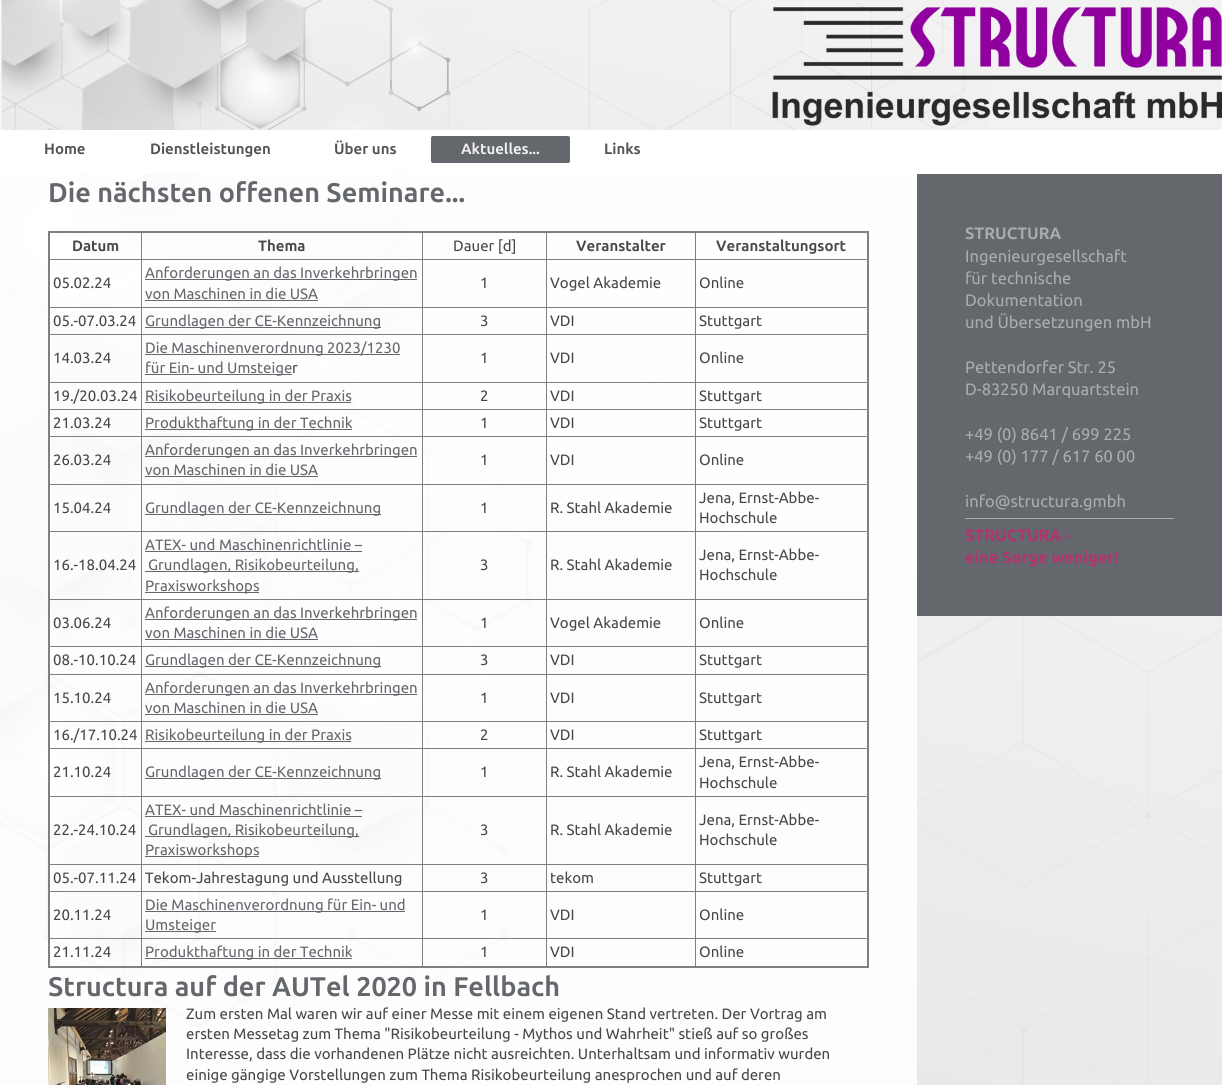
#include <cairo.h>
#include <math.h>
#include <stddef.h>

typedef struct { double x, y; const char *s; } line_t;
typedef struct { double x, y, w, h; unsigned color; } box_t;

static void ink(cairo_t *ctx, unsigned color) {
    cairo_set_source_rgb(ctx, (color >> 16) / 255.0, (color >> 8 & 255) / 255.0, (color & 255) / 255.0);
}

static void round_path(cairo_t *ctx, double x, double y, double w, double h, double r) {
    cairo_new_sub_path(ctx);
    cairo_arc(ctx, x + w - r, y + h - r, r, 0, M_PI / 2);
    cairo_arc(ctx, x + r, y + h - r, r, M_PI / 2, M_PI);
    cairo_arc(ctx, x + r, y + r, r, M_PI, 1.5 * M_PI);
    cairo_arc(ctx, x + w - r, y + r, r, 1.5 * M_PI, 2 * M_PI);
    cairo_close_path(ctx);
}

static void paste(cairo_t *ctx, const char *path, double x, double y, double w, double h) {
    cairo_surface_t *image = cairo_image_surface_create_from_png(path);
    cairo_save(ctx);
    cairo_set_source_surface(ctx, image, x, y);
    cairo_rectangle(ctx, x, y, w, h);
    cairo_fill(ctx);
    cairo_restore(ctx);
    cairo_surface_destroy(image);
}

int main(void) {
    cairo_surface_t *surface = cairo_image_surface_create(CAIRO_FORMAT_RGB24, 1222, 1085);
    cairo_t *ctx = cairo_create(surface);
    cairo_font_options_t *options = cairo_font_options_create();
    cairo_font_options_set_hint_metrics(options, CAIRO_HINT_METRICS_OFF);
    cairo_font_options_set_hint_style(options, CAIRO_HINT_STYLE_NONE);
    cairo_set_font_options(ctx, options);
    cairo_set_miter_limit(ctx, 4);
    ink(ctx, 0xFFFFFF);
    cairo_paint(ctx);
    paste(ctx, "media/1.png", 0, 174, 1222, 911);
    paste(ctx, "media/2.png", 0, 0, 1222, 130);
    cairo_select_font_face(ctx, "Ubuntu", CAIRO_FONT_SLANT_NORMAL, CAIRO_FONT_WEIGHT_BOLD);
    cairo_set_font_size(ctx, 15);
    ink(ctx, 0x535353);
    {
        static const line_t items[] = {
            {44, 154, "Home"},
            {150, 154, "Dienstleistungen"},
            {334, 154, "Über uns"},
        };
        for (size_t i = 0; i < sizeof items / sizeof *items; i++) {
            cairo_move_to(ctx, items[i].x, items[i].y);
            cairo_show_text(ctx, items[i].s);
        }
    }
    ink(ctx, 0x64676C);
    round_path(ctx, 431, 136, 139, 27, 2);
    cairo_fill(ctx);
    cairo_rectangle(ctx, 432, 162, 137, 1);
    cairo_fill(ctx);
    ink(ctx, 0xF0F0F0);
    cairo_move_to(ctx, 461, 154);
    cairo_show_text(ctx, "Aktuelles...");
    ink(ctx, 0x535353);
    cairo_move_to(ctx, 604, 154);
    cairo_show_text(ctx, "Links");
    cairo_set_source_rgba(ctx, 1, 1, 1, 0.9);
    cairo_rectangle(ctx, 0, 174, 917, 911);
    cairo_fill(ctx);
    cairo_set_font_size(ctx, 27);
    ink(ctx, 0x64676C);
    cairo_move_to(ctx, 48, 202);
    cairo_show_text(ctx, "Die nächsten offenen Seminare...");
    {
        static const box_t items[] = {
            {695, 259, 173, 1, 0x808080},
            {695, 307, 173, 1, 0x808080},
            {695, 334, 173, 1, 0x808080},
            {695, 382, 173, 1, 0x808080},
            {695, 409, 173, 1, 0x808080},
            {695, 436, 173, 1, 0x808080},
            {695, 484, 173, 1, 0x808080},
            {695, 531, 173, 1, 0x808080},
            {695, 599, 173, 1, 0x808080},
            {695, 646, 173, 1, 0x808080},
            {695, 674, 173, 1, 0x808080},
            {695, 721, 173, 1, 0x808080},
            {695, 748, 173, 1, 0x808080},
            {695, 796, 173, 1, 0x808080},
            {695, 864, 173, 1, 0x808080},
            {695, 891, 173, 1, 0x808080},
            {695, 938, 173, 1, 0x808080},
            {695, 938, 1, 29, 0x808080},
            {546, 938, 150, 1, 0x808080},
            {695, 891, 1, 48, 0x808080},
            {546, 891, 150, 1, 0x808080},
            {695, 864, 1, 28, 0x808080},
            {546, 864, 150, 1, 0x808080},
            {695, 796, 1, 69, 0x808080},
            {546, 796, 150, 1, 0x808080},
            {695, 748, 1, 49, 0x808080},
            {546, 748, 150, 1, 0x808080},
            {695, 721, 1, 28, 0x808080},
            {546, 721, 150, 1, 0x808080},
            {695, 674, 1, 48, 0x808080},
            {546, 674, 150, 1, 0x808080},
            {695, 646, 1, 29, 0x808080},
            {546, 646, 150, 1, 0x808080},
            {695, 599, 1, 48, 0x808080},
            {546, 599, 150, 1, 0x808080},
            {695, 531, 1, 69, 0x808080},
            {546, 531, 150, 1, 0x808080},
            {695, 484, 1, 48, 0x808080},
            {546, 484, 150, 1, 0x808080},
            {695, 436, 1, 49, 0x808080},
            {546, 436, 150, 1, 0x808080},
            {695, 409, 1, 28, 0x808080},
            {546, 409, 150, 1, 0x808080},
            {695, 382, 1, 28, 0x808080},
            {546, 382, 150, 1, 0x808080},
            {695, 334, 1, 49, 0x808080},
            {546, 334, 150, 1, 0x808080},
            {695, 307, 1, 28, 0x808080},
            {546, 307, 150, 1, 0x808080},
            {695, 259, 1, 49, 0x808080},
            {546, 259, 150, 1, 0x808080},
            {546, 938, 1, 29, 0x808080},
            {422, 938, 125, 1, 0x808080},
            {546, 891, 1, 48, 0x808080},
            {422, 891, 125, 1, 0x808080},
            {546, 864, 1, 28, 0x808080},
            {422, 864, 125, 1, 0x808080},
            {546, 796, 1, 69, 0x808080},
            {422, 796, 125, 1, 0x808080},
            {546, 748, 1, 49, 0x808080},
            {422, 748, 125, 1, 0x808080},
            {546, 721, 1, 28, 0x808080},
            {422, 721, 125, 1, 0x808080},
            {546, 674, 1, 48, 0x808080},
            {422, 674, 125, 1, 0x808080},
            {546, 646, 1, 29, 0x808080},
            {422, 646, 125, 1, 0x808080},
            {546, 599, 1, 48, 0x808080},
            {422, 599, 125, 1, 0x808080},
            {546, 531, 1, 69, 0x808080},
            {422, 531, 125, 1, 0x808080},
            {546, 484, 1, 48, 0x808080},
            {422, 484, 125, 1, 0x808080},
            {546, 436, 1, 49, 0x808080},
            {422, 436, 125, 1, 0x808080},
            {546, 409, 1, 28, 0x808080},
            {422, 409, 125, 1, 0x808080},
            {546, 382, 1, 28, 0x808080},
            {422, 382, 125, 1, 0x808080},
            {546, 334, 1, 49, 0x808080},
            {422, 334, 125, 1, 0x808080},
            {546, 307, 1, 28, 0x808080},
            {422, 307, 125, 1, 0x808080},
            {546, 259, 1, 49, 0x808080},
            {422, 259, 125, 1, 0x808080},
            {422, 938, 1, 29, 0x808080},
            {141, 938, 282, 1, 0x808080},
            {422, 891, 1, 48, 0x808080},
            {141, 891, 282, 1, 0x808080},
            {422, 864, 1, 28, 0x808080},
            {141, 864, 282, 1, 0x808080},
            {422, 796, 1, 69, 0x808080},
            {141, 796, 282, 1, 0x808080},
            {422, 748, 1, 49, 0x808080},
            {141, 748, 282, 1, 0x808080},
            {422, 721, 1, 28, 0x808080},
            {141, 721, 282, 1, 0x808080},
            {422, 674, 1, 48, 0x808080},
            {141, 674, 282, 1, 0x808080},
            {422, 646, 1, 29, 0x808080},
            {141, 646, 282, 1, 0x808080},
            {422, 599, 1, 48, 0x808080},
            {141, 599, 282, 1, 0x808080},
            {422, 531, 1, 69, 0x808080},
            {141, 531, 282, 1, 0x808080},
            {422, 484, 1, 48, 0x808080},
            {141, 484, 282, 1, 0x808080},
            {422, 436, 1, 49, 0x808080},
            {141, 436, 282, 1, 0x808080},
            {422, 409, 1, 28, 0x808080},
            {141, 409, 282, 1, 0x808080},
            {422, 382, 1, 28, 0x808080},
            {141, 382, 282, 1, 0x808080},
            {422, 334, 1, 49, 0x808080},
            {141, 334, 282, 1, 0x808080},
            {422, 307, 1, 28, 0x808080},
            {141, 307, 282, 1, 0x808080},
            {422, 259, 1, 49, 0x808080},
            {141, 259, 282, 1, 0x808080},
            {141, 938, 1, 29, 0x808080},
            {49, 938, 93, 1, 0x808080},
            {141, 891, 1, 48, 0x808080},
            {49, 891, 93, 1, 0x808080},
            {141, 864, 1, 28, 0x808080},
            {49, 864, 93, 1, 0x808080},
            {141, 796, 1, 69, 0x808080},
            {49, 796, 93, 1, 0x808080},
            {141, 748, 1, 49, 0x808080},
            {49, 748, 93, 1, 0x808080},
            {141, 721, 1, 28, 0x808080},
            {49, 721, 93, 1, 0x808080},
            {141, 674, 1, 48, 0x808080},
            {49, 674, 93, 1, 0x808080},
            {141, 646, 1, 29, 0x808080},
            {49, 646, 93, 1, 0x808080},
            {141, 599, 1, 48, 0x808080},
            {49, 599, 93, 1, 0x808080},
            {141, 531, 1, 69, 0x808080},
            {49, 531, 93, 1, 0x808080},
            {141, 484, 1, 48, 0x808080},
            {49, 484, 93, 1, 0x808080},
            {141, 436, 1, 49, 0x808080},
            {49, 436, 93, 1, 0x808080},
            {141, 409, 1, 28, 0x808080},
            {49, 409, 93, 1, 0x808080},
            {141, 382, 1, 28, 0x808080},
            {49, 382, 93, 1, 0x808080},
            {141, 334, 1, 49, 0x808080},
            {49, 334, 93, 1, 0x808080},
            {141, 307, 1, 28, 0x808080},
            {49, 307, 93, 1, 0x808080},
            {141, 259, 1, 49, 0x808080},
            {49, 259, 93, 1, 0x808080},
            {141, 232, 1, 28, 0x808080},
            {422, 232, 1, 28, 0x808080},
            {546, 232, 1, 28, 0x808080},
            {695, 232, 1, 28, 0x808080},
            {48, 231, 821, 2, 0x808080},
            {867, 231, 2, 737, 0x808080},
            {48, 966, 821, 2, 0x808080},
            {48, 231, 2, 737, 0x808080},
        };
        for (size_t i = 0; i < sizeof items / sizeof *items; i++) {
            ink(ctx, items[i].color);
            cairo_rectangle(ctx, items[i].x, items[i].y, items[i].w, items[i].h);
            cairo_fill(ctx);
        }
    }
    cairo_set_font_size(ctx, 15);
    ink(ctx, 0x474747);
    cairo_move_to(ctx, 72, 251);
    cairo_show_text(ctx, "Datum");
    cairo_move_to(ctx, 258, 251);
    cairo_show_text(ctx, "Thema");
    cairo_select_font_face(ctx, "Ubuntu", CAIRO_FONT_SLANT_NORMAL, CAIRO_FONT_WEIGHT_NORMAL);
    cairo_move_to(ctx, 453, 251);
    cairo_show_text(ctx, "Dauer [d]");
    cairo_select_font_face(ctx, "Ubuntu", CAIRO_FONT_SLANT_NORMAL, CAIRO_FONT_WEIGHT_BOLD);
    cairo_move_to(ctx, 576, 251);
    cairo_show_text(ctx, "Veranstalter");
    cairo_move_to(ctx, 716, 251);
    cairo_show_text(ctx, "Veranstaltungsort");
    cairo_select_font_face(ctx, "Ubuntu", CAIRO_FONT_SLANT_NORMAL, CAIRO_FONT_WEIGHT_NORMAL);
    cairo_move_to(ctx, 53, 288);
    cairo_show_text(ctx, "05.02.24");
    ink(ctx, 0x64676C);
    cairo_rectangle(ctx, 145, 279, 272, 1);
    cairo_fill(ctx);
    cairo_move_to(ctx, 145, 278);
    cairo_show_text(ctx, "Anforderungen an das Inverkehrbringen");
    cairo_move_to(ctx, 145, 299);
    cairo_show_text(ctx, "von Maschinen in die USA");
    cairo_rectangle(ctx, 145, 300, 173, 1);
    cairo_fill(ctx);
    ink(ctx, 0x474747);
    {
        static const line_t items[] = {
            {480, 288, "1"},
            {550, 288, "Vogel Akademie"},
            {699, 288, "Online"},
            {53, 326, "05.-07.03.24"},
        };
        for (size_t i = 0; i < sizeof items / sizeof *items; i++) {
            cairo_move_to(ctx, items[i].x, items[i].y);
            cairo_show_text(ctx, items[i].s);
        }
    }
    ink(ctx, 0x64676C);
    cairo_rectangle(ctx, 145, 327, 236, 1);
    cairo_fill(ctx);
    cairo_move_to(ctx, 145, 326);
    cairo_show_text(ctx, "Grundlagen der CE-Kennzeichnung");
    ink(ctx, 0x474747);
    {
        static const line_t items[] = {
            {480, 326, "3"},
            {550, 326, "VDI"},
            {699, 326, "Stuttgart"},
            {53, 363, "14.03.24"},
        };
        for (size_t i = 0; i < sizeof items / sizeof *items; i++) {
            cairo_move_to(ctx, items[i].x, items[i].y);
            cairo_show_text(ctx, items[i].s);
        }
    }
    ink(ctx, 0x64676C);
    cairo_rectangle(ctx, 145, 354, 255, 1);
    cairo_fill(ctx);
    cairo_move_to(ctx, 145, 353);
    cairo_show_text(ctx, "Die Maschinenverordnung 2023/1230");
    cairo_rectangle(ctx, 145, 374, 147, 1);
    cairo_fill(ctx);
    cairo_move_to(ctx, 145, 373);
    cairo_show_text(ctx, "für Ein- und Umsteige");
    ink(ctx, 0x474747);
    {
        static const line_t items[] = {
            {292, 373, "r"},
            {480, 363, "1"},
            {550, 363, "VDI"},
            {699, 363, "Online"},
            {53, 401, "19./20.03.24"},
        };
        for (size_t i = 0; i < sizeof items / sizeof *items; i++) {
            cairo_move_to(ctx, items[i].x, items[i].y);
            cairo_show_text(ctx, items[i].s);
        }
    }
    ink(ctx, 0x64676C);
    cairo_rectangle(ctx, 145, 402, 206, 1);
    cairo_fill(ctx);
    cairo_move_to(ctx, 145, 401);
    cairo_show_text(ctx, "Risikobeurteilung in der Praxis");
    ink(ctx, 0x474747);
    {
        static const line_t items[] = {
            {480, 401, "2"},
            {550, 401, "VDI"},
            {699, 401, "Stuttgart"},
            {53, 428, "21.03.24"},
        };
        for (size_t i = 0; i < sizeof items / sizeof *items; i++) {
            cairo_move_to(ctx, items[i].x, items[i].y);
            cairo_show_text(ctx, items[i].s);
        }
    }
    ink(ctx, 0x64676C);
    cairo_rectangle(ctx, 145, 429, 207, 1);
    cairo_fill(ctx);
    cairo_move_to(ctx, 145, 428);
    cairo_show_text(ctx, "Produkthaftung in der Technik");
    ink(ctx, 0x474747);
    {
        static const line_t items[] = {
            {480, 428, "1"},
            {550, 428, "VDI"},
            {699, 428, "Stuttgart"},
            {53, 465, "26.03.24"},
        };
        for (size_t i = 0; i < sizeof items / sizeof *items; i++) {
            cairo_move_to(ctx, items[i].x, items[i].y);
            cairo_show_text(ctx, items[i].s);
        }
    }
    ink(ctx, 0x64676C);
    cairo_rectangle(ctx, 145, 456, 272, 1);
    cairo_fill(ctx);
    cairo_move_to(ctx, 145, 455);
    cairo_show_text(ctx, "Anforderungen an das Inverkehrbringen");
    cairo_move_to(ctx, 145, 475);
    cairo_show_text(ctx, "von Maschinen in die USA");
    cairo_rectangle(ctx, 145, 476, 173, 1);
    cairo_fill(ctx);
    ink(ctx, 0x474747);
    {
        static const line_t items[] = {
            {480, 465, "1"},
            {550, 465, "VDI"},
            {699, 465, "Online"},
            {53, 513, "15.04.24"},
        };
        for (size_t i = 0; i < sizeof items / sizeof *items; i++) {
            cairo_move_to(ctx, items[i].x, items[i].y);
            cairo_show_text(ctx, items[i].s);
        }
    }
    ink(ctx, 0x64676C);
    cairo_rectangle(ctx, 145, 514, 236, 1);
    cairo_fill(ctx);
    cairo_move_to(ctx, 145, 513);
    cairo_show_text(ctx, "Grundlagen der CE-Kennzeichnung");
    ink(ctx, 0x474747);
    {
        static const line_t items[] = {
            {480, 513, "1"},
            {550, 513, "R. Stahl Akademie"},
            {699, 503, "Jena, Ernst-Abbe-"},
            {699, 523, "Hochschule"},
            {53, 570, "16.-18.04.24"},
        };
        for (size_t i = 0; i < sizeof items / sizeof *items; i++) {
            cairo_move_to(ctx, items[i].x, items[i].y);
            cairo_show_text(ctx, items[i].s);
        }
    }
    ink(ctx, 0x64676C);
    cairo_move_to(ctx, 145, 550);
    cairo_show_text(ctx, "ATEX- und Maschinenrichtlinie –");
    cairo_rectangle(ctx, 145, 551, 217, 1);
    cairo_fill(ctx);
    cairo_rectangle(ctx, 145, 571, 214, 1);
    cairo_fill(ctx);
    cairo_move_to(ctx, 148, 570);
    cairo_show_text(ctx, "Grundlagen, Risikobeurteilung,");
    cairo_rectangle(ctx, 145, 592, 114, 1);
    cairo_fill(ctx);
    cairo_move_to(ctx, 145, 591);
    cairo_show_text(ctx, "Praxisworkshops");
    ink(ctx, 0x474747);
    {
        static const line_t items[] = {
            {480, 570, "3"},
            {550, 570, "R. Stahl Akademie"},
            {699, 560, "Jena, Ernst-Abbe-"},
            {699, 580, "Hochschule"},
            {53, 628, "03.06.24"},
        };
        for (size_t i = 0; i < sizeof items / sizeof *items; i++) {
            cairo_move_to(ctx, items[i].x, items[i].y);
            cairo_show_text(ctx, items[i].s);
        }
    }
    ink(ctx, 0x64676C);
    cairo_rectangle(ctx, 145, 619, 272, 1);
    cairo_fill(ctx);
    cairo_move_to(ctx, 145, 618);
    cairo_show_text(ctx, "Anforderungen an das Inverkehrbringen");
    cairo_move_to(ctx, 145, 638);
    cairo_show_text(ctx, "von Maschinen in die USA");
    cairo_rectangle(ctx, 145, 639, 173, 1);
    cairo_fill(ctx);
    ink(ctx, 0x474747);
    {
        static const line_t items[] = {
            {480, 628, "1"},
            {550, 628, "Vogel Akademie"},
            {699, 628, "Online"},
            {53, 665, "08.-10.10.24"},
        };
        for (size_t i = 0; i < sizeof items / sizeof *items; i++) {
            cairo_move_to(ctx, items[i].x, items[i].y);
            cairo_show_text(ctx, items[i].s);
        }
    }
    cairo_set_source_rgba(ctx, 1, 1, 1, 0.9);
    cairo_rectangle(ctx, 159, 651, 81, 17);
    cairo_fill(ctx);
    ink(ctx, 0x64676C);
    cairo_rectangle(ctx, 145, 666, 236, 1);
    cairo_fill(ctx);
    cairo_move_to(ctx, 145, 665);
    cairo_show_text(ctx, "Grundlagen der CE-Kennzeichnung");
    ink(ctx, 0x474747);
    {
        static const line_t items[] = {
            {480, 665, "3"},
            {550, 665, "VDI"},
            {699, 665, "Stuttgart"},
            {53, 703, "15.10.24"},
        };
        for (size_t i = 0; i < sizeof items / sizeof *items; i++) {
            cairo_move_to(ctx, items[i].x, items[i].y);
            cairo_show_text(ctx, items[i].s);
        }
    }
    ink(ctx, 0x64676C);
    cairo_rectangle(ctx, 145, 694, 272, 1);
    cairo_fill(ctx);
    cairo_move_to(ctx, 145, 693);
    cairo_show_text(ctx, "Anforderungen an das Inverkehrbringen");
    cairo_move_to(ctx, 145, 713);
    cairo_show_text(ctx, "von Maschinen in die USA");
    cairo_rectangle(ctx, 145, 714, 173, 1);
    cairo_fill(ctx);
    ink(ctx, 0x474747);
    {
        static const line_t items[] = {
            {480, 703, "1"},
            {550, 703, "VDI"},
            {699, 703, "Stuttgart"},
            {53, 740, "16./17.10.24"},
        };
        for (size_t i = 0; i < sizeof items / sizeof *items; i++) {
            cairo_move_to(ctx, items[i].x, items[i].y);
            cairo_show_text(ctx, items[i].s);
        }
    }
    ink(ctx, 0x64676C);
    cairo_rectangle(ctx, 145, 741, 206, 1);
    cairo_fill(ctx);
    cairo_move_to(ctx, 145, 740);
    cairo_show_text(ctx, "Risikobeurteilung in der Praxis");
    ink(ctx, 0x474747);
    {
        static const line_t items[] = {
            {480, 740, "2"},
            {550, 740, "VDI"},
            {699, 740, "Stuttgart"},
            {53, 777, "21.10.24"},
        };
        for (size_t i = 0; i < sizeof items / sizeof *items; i++) {
            cairo_move_to(ctx, items[i].x, items[i].y);
            cairo_show_text(ctx, items[i].s);
        }
    }
    ink(ctx, 0x64676C);
    cairo_rectangle(ctx, 145, 778, 236, 1);
    cairo_fill(ctx);
    cairo_move_to(ctx, 145, 777);
    cairo_show_text(ctx, "Grundlagen der CE-Kennzeichnung");
    ink(ctx, 0x474747);
    {
        static const line_t items[] = {
            {480, 777, "1"},
            {550, 777, "R. Stahl Akademie"},
            {699, 767, "Jena, Ernst-Abbe-"},
            {699, 788, "Hochschule"},
            {53, 835, "22.-24.10.24"},
        };
        for (size_t i = 0; i < sizeof items / sizeof *items; i++) {
            cairo_move_to(ctx, items[i].x, items[i].y);
            cairo_show_text(ctx, items[i].s);
        }
    }
    ink(ctx, 0x64676C);
    cairo_move_to(ctx, 145, 815);
    cairo_show_text(ctx, "ATEX- und Maschinenrichtlinie –");
    cairo_rectangle(ctx, 145, 816, 217, 1);
    cairo_fill(ctx);
    cairo_rectangle(ctx, 145, 836, 214, 1);
    cairo_fill(ctx);
    cairo_move_to(ctx, 148, 835);
    cairo_show_text(ctx, "Grundlagen, Risikobeurteilung,");
    cairo_rectangle(ctx, 145, 856, 114, 1);
    cairo_fill(ctx);
    cairo_move_to(ctx, 145, 855);
    cairo_show_text(ctx, "Praxisworkshops");
    ink(ctx, 0x474747);
    {
        static const line_t items[] = {
            {480, 835, "3"},
            {550, 835, "R. Stahl Akademie"},
            {699, 825, "Jena, Ernst-Abbe-"},
            {699, 845, "Hochschule"},
            {53, 883, "05.-07.11.24"},
            {145, 883, "Tekom-Jahrestagung und Ausstellung"},
            {480, 883, "3"},
            {550, 883, "tekom"},
            {699, 883, "Stuttgart"},
            {53, 920, "20.11.24"},
        };
        for (size_t i = 0; i < sizeof items / sizeof *items; i++) {
            cairo_move_to(ctx, items[i].x, items[i].y);
            cairo_show_text(ctx, items[i].s);
        }
    }
    ink(ctx, 0x64676C);
    cairo_rectangle(ctx, 145, 911, 260, 1);
    cairo_fill(ctx);
    cairo_move_to(ctx, 145, 910);
    cairo_show_text(ctx, "Die Maschinenverordnung für Ein- und");
    cairo_rectangle(ctx, 145, 931, 71, 1);
    cairo_fill(ctx);
    cairo_move_to(ctx, 145, 930);
    cairo_show_text(ctx, "Umsteiger");
    ink(ctx, 0x474747);
    {
        static const line_t items[] = {
            {480, 920, "1"},
            {550, 920, "VDI"},
            {699, 920, "Online"},
            {53, 957, "21.11.24"},
        };
        for (size_t i = 0; i < sizeof items / sizeof *items; i++) {
            cairo_move_to(ctx, items[i].x, items[i].y);
            cairo_show_text(ctx, items[i].s);
        }
    }
    ink(ctx, 0x64676C);
    cairo_rectangle(ctx, 145, 958, 207, 1);
    cairo_fill(ctx);
    cairo_move_to(ctx, 145, 957);
    cairo_show_text(ctx, "Produkthaftung in der Technik");
    ink(ctx, 0x474747);
    {
        static const line_t items[] = {
            {480, 957, "1"},
            {550, 957, "VDI"},
            {699, 957, "Online"},
        };
        for (size_t i = 0; i < sizeof items / sizeof *items; i++) {
            cairo_move_to(ctx, items[i].x, items[i].y);
            cairo_show_text(ctx, items[i].s);
        }
    }
    cairo_select_font_face(ctx, "Ubuntu", CAIRO_FONT_SLANT_NORMAL, CAIRO_FONT_WEIGHT_BOLD);
    cairo_set_font_size(ctx, 27);
    ink(ctx, 0x64676C);
    cairo_move_to(ctx, 48, 996);
    cairo_show_text(ctx, "Structura auf der AUTel 2020 in Fellbach");
    paste(ctx, "media/3.png", 48, 1008, 118, 77);
    cairo_select_font_face(ctx, "Ubuntu", CAIRO_FONT_SLANT_NORMAL, CAIRO_FONT_WEIGHT_NORMAL);
    cairo_set_font_size(ctx, 15);
    ink(ctx, 0x474747);
    {
        static const line_t items[] = {
            {186, 1019, "Zum ersten Mal waren wir auf einer Messe mit einem eigenen Stand vertreten. Der Vortrag am"},
            {186, 1039, "ersten Messetag zum Thema \"Risikobeurteilung - Mythos und Wahrheit\" stieß auf so großes"},
            {186, 1059, "Interesse, dass die vorhandenen Plätze nicht ausreichten. Unterhaltsam und informativ wurden"},
            {186, 1080, "einige gängige Vorstellungen zum Thema Risikobeurteilung anesprochen und auf deren"},
        };
        for (size_t i = 0; i < sizeof items / sizeof *items; i++) {
            cairo_move_to(ctx, items[i].x, items[i].y);
            cairo_show_text(ctx, items[i].s);
        }
    }
    ink(ctx, 0x64676C);
    cairo_rectangle(ctx, 917, 174, 305, 442);
    cairo_fill(ctx);
    cairo_select_font_face(ctx, "Ubuntu", CAIRO_FONT_SLANT_NORMAL, CAIRO_FONT_WEIGHT_BOLD);
    cairo_set_font_size(ctx, 16.5);
    ink(ctx, 0xAAACB0);
    cairo_move_to(ctx, 965, 239);
    cairo_show_text(ctx, "STRUCTURA");
    cairo_select_font_face(ctx, "Ubuntu", CAIRO_FONT_SLANT_NORMAL, CAIRO_FONT_WEIGHT_NORMAL);
    {
        static const line_t items[] = {
            {965, 262, "Ingenieurgesellschaft"},
            {965, 284, "für technische"},
            {965, 306, "Dokumentation"},
            {965, 328, "und Übersetzungen mbH"},
            {965, 373, "Pettendorfer Str. 25"},
            {965, 395, "D-83250 Marquartstein"},
            {965, 440, "+49 (0) 8641 / 699 225"},
            {965, 462, "+49 (0) 177 / 617 60 00"},
            {965, 507, "info@structura.gmbh"},
        };
        for (size_t i = 0; i < sizeof items / sizeof *items; i++) {
            cairo_move_to(ctx, items[i].x, items[i].y);
            cairo_show_text(ctx, items[i].s);
        }
    }
    cairo_rectangle(ctx, 965, 518, 209, 1);
    cairo_fill(ctx);
    cairo_select_font_face(ctx, "Ubuntu", CAIRO_FONT_SLANT_NORMAL, CAIRO_FONT_WEIGHT_BOLD);
    ink(ctx, 0xB7316E);
    cairo_move_to(ctx, 965, 541);
    cairo_show_text(ctx, "STRUCTURA -");
    cairo_move_to(ctx, 965, 563);
    cairo_show_text(ctx, "eine Sorge weniger!");
    cairo_surface_write_to_png(surface, "image.png");
    cairo_font_options_destroy(options);
    cairo_destroy(ctx);
    cairo_surface_destroy(surface);
    return 0;
}
